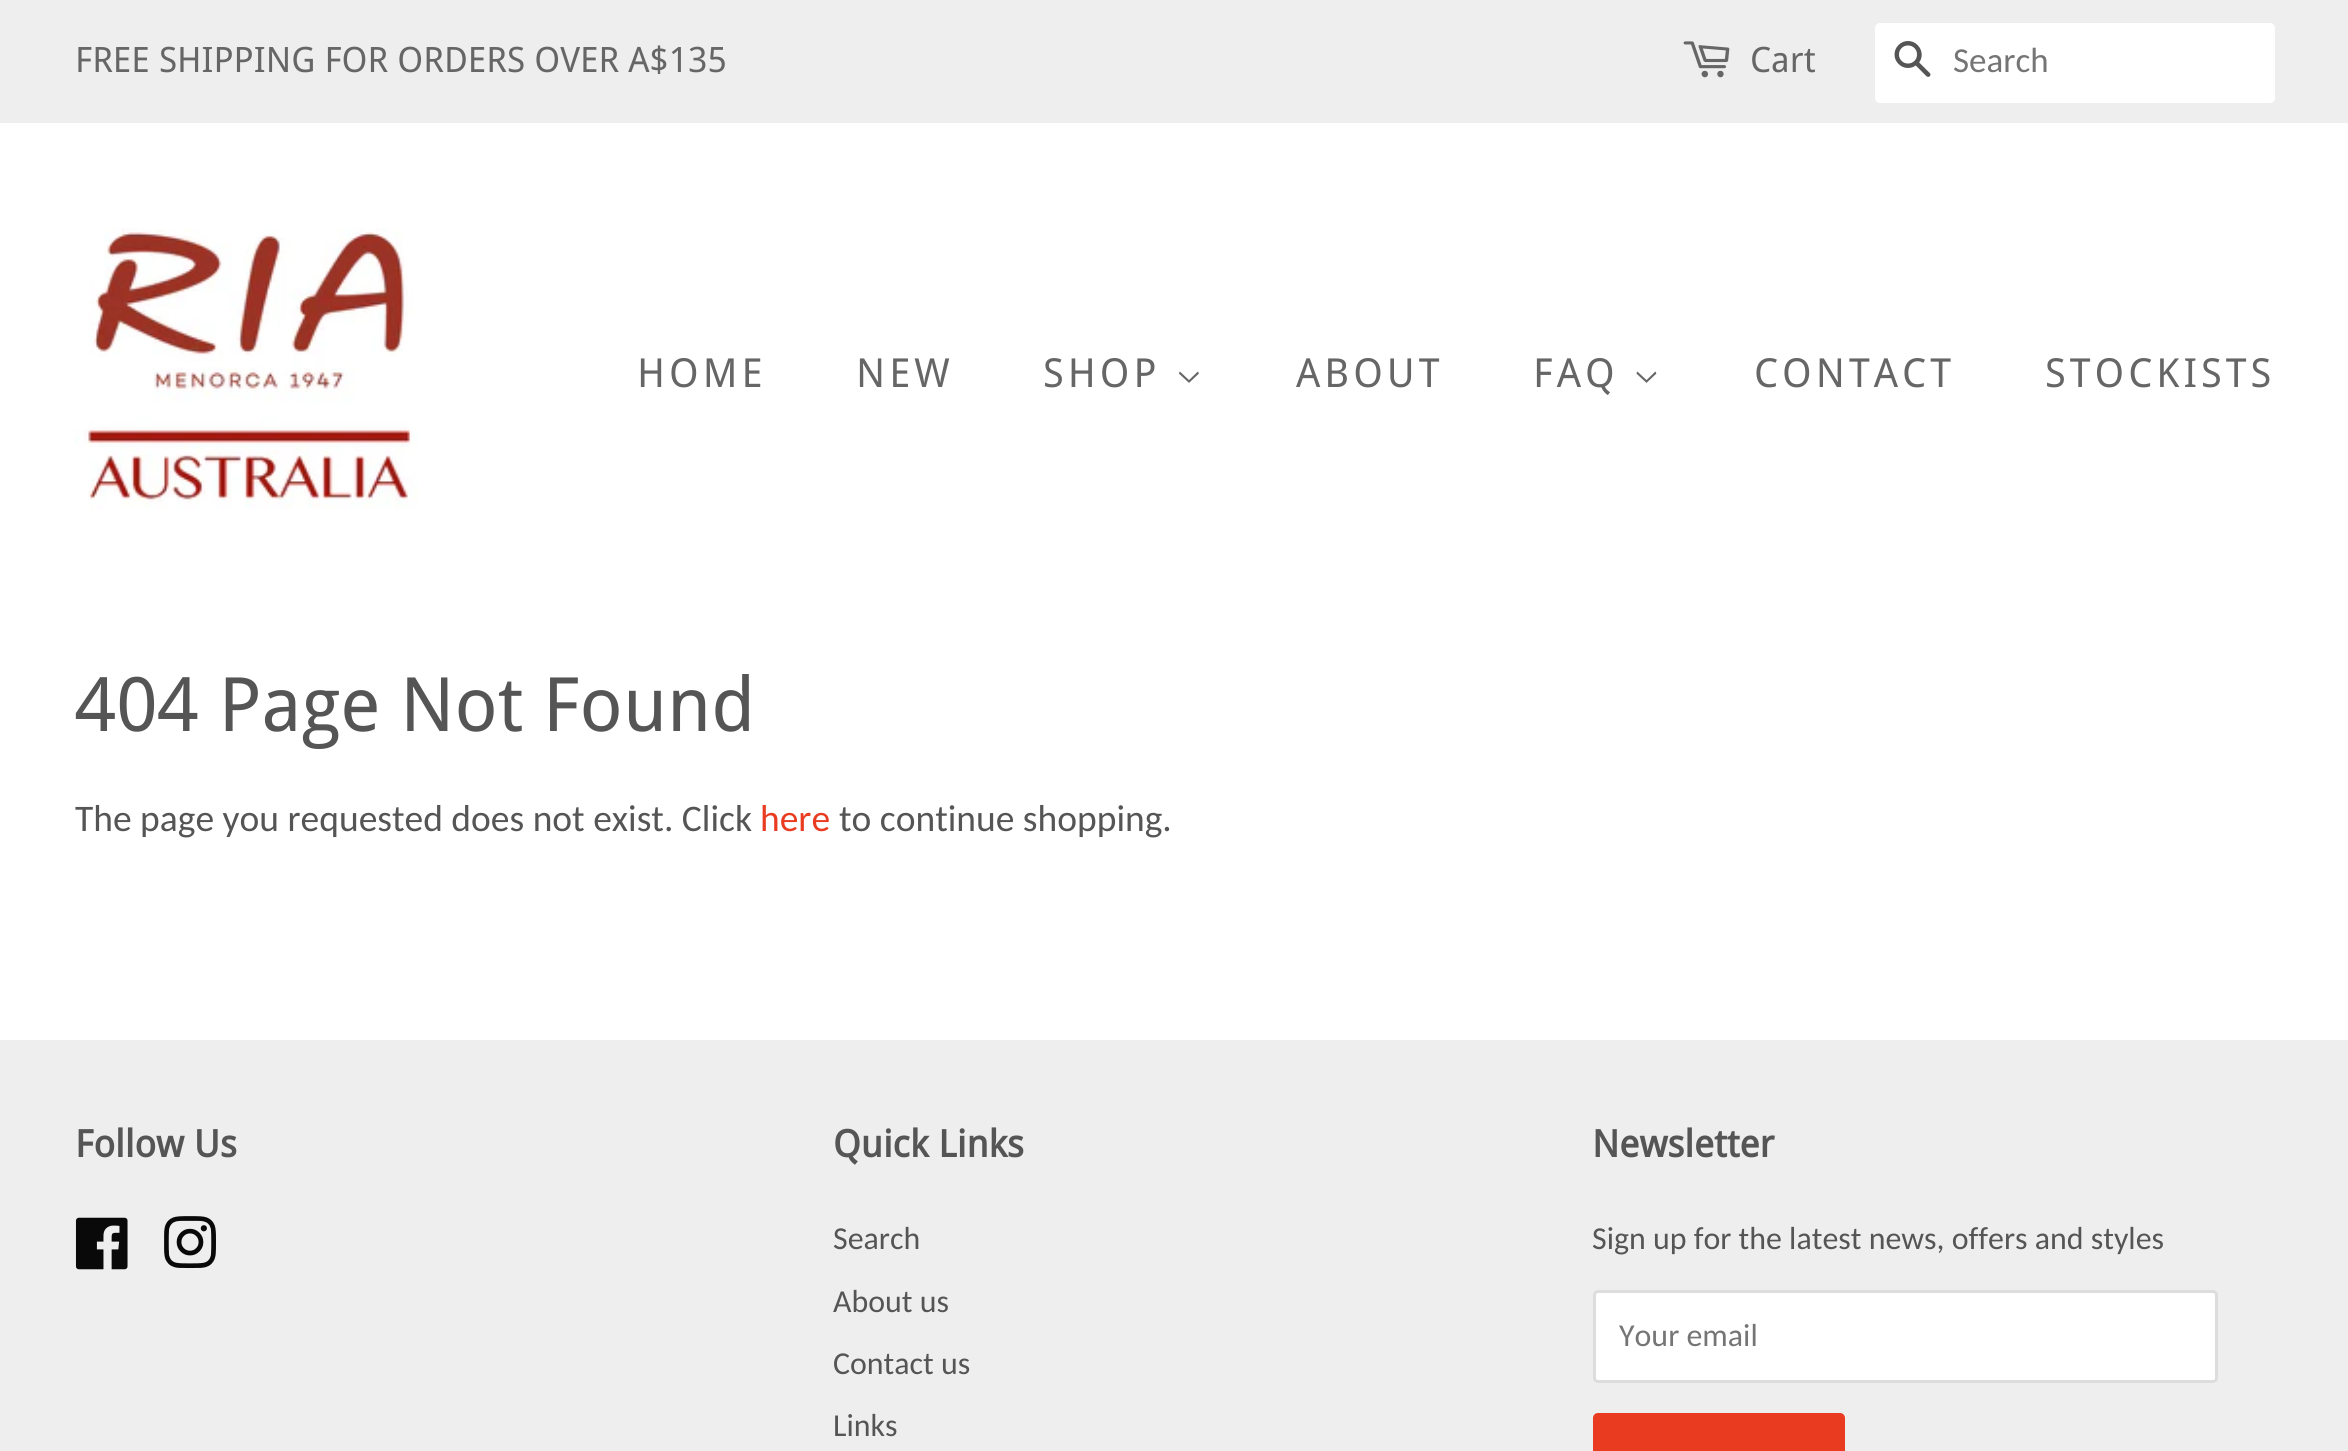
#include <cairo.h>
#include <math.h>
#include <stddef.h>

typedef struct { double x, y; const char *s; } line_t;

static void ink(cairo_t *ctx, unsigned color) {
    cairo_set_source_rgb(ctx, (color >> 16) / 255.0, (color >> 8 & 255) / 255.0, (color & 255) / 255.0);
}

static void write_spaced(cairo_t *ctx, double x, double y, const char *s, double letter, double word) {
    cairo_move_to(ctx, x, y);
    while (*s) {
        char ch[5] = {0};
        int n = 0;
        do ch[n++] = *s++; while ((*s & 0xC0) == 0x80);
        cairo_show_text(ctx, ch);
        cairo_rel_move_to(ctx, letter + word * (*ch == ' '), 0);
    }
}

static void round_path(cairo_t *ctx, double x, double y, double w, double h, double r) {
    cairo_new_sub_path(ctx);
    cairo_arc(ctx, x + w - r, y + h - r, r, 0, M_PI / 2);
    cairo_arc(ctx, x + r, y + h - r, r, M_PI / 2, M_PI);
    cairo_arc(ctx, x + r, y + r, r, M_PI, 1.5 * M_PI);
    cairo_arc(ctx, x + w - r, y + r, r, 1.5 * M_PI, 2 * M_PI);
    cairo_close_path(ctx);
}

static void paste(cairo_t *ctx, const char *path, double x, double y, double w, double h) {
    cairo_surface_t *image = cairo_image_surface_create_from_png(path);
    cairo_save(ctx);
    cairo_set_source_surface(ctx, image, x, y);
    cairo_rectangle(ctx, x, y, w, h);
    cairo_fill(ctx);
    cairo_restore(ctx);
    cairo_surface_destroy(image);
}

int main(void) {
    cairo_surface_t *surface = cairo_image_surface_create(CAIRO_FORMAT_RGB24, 2348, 1451);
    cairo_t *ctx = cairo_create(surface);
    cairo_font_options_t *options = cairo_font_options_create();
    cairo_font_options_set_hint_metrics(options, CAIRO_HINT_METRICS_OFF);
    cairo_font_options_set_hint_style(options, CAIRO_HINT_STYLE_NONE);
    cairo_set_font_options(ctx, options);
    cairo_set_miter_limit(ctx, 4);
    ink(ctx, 0xFFFFFF);
    cairo_paint(ctx);
    ink(ctx, 0xEEEEEE);
    cairo_rectangle(ctx, 0, 0, 2348, 123);
    cairo_fill(ctx);
    cairo_select_font_face(ctx, "Droid Sans", CAIRO_FONT_SLANT_NORMAL, CAIRO_FONT_WEIGHT_NORMAL);
    cairo_set_font_size(ctx, 35);
    ink(ctx, 0x666666);
    cairo_move_to(ctx, 75, 72);
    cairo_show_text(ctx, "FREE SHIPPING FOR ORDERS OVER A$135");
    paste(ctx, "media/1.png", 1683, 41, 47, 37);
    cairo_move_to(ctx, 1750, 72);
    cairo_show_text(ctx, "Cart");
    ink(ctx, 0xFFFFFF);
    round_path(ctx, 1875, 23, 400, 80, 5);
    cairo_fill(ctx);
    paste(ctx, "media/2.png", 1894, 41, 37, 36);
    cairo_select_font_face(ctx, "Carlito", CAIRO_FONT_SLANT_NORMAL, CAIRO_FONT_WEIGHT_NORMAL);
    ink(ctx, 0x757575);
    cairo_move_to(ctx, 1953, 72);
    cairo_show_text(ctx, "Search");
    paste(ctx, "media/3.png", 75, 228, 343, 281);
    cairo_select_font_face(ctx, "Droid Sans", CAIRO_FONT_SLANT_NORMAL, CAIRO_FONT_WEIGHT_NORMAL);
    cairo_set_font_size(ctx, 40);
    ink(ctx, 0x666666);
    {
        static const line_t items[] = {
            {637, 387, "HOME"},
            {856, 387, "NEW"},
            {1043, 387, "SHOP"},
        };
        for (size_t i = 0; i < sizeof items / sizeof *items; i++) {
            write_spaced(ctx, items[i].x, items[i].y, items[i].s, 4, 0);
        }
    }
    paste(ctx, "media/4.png", 1179, 371, 20, 12);
    write_spaced(ctx, 1296, 387, "ABOUT", 4, 0);
    write_spaced(ctx, 1533, 387, "FAQ", 4, 0);
    paste(ctx, "media/5.png", 1636, 371, 21, 12);
    write_spaced(ctx, 1754, 387, "CONTACT", 4, 0);
    write_spaced(ctx, 2045, 387, "STOCKISTS", 4, 0);
    cairo_set_font_size(ctx, 75);
    ink(ctx, 0x555555);
    cairo_move_to(ctx, 75, 731);
    cairo_show_text(ctx, "404 Page Not Found");
    cairo_select_font_face(ctx, "Carlito", CAIRO_FONT_SLANT_NORMAL, CAIRO_FONT_WEIGHT_NORMAL);
    cairo_set_font_size(ctx, 37.5);
    cairo_move_to(ctx, 75, 831);
    cairo_show_text(ctx, "The page you requested does not exist. Click");
    ink(ctx, 0xE93B20);
    cairo_move_to(ctx, 760, 831);
    cairo_show_text(ctx, "here");
    ink(ctx, 0x555555);
    cairo_move_to(ctx, 839, 831);
    cairo_show_text(ctx, "to continue shopping.");
    ink(ctx, 0xEEEEEE);
    cairo_rectangle(ctx, 0, 1040, 2348, 411);
    cairo_fill(ctx);
    cairo_select_font_face(ctx, "Droid Sans", CAIRO_FONT_SLANT_NORMAL, CAIRO_FONT_WEIGHT_BOLD);
    ink(ctx, 0x555555);
    cairo_move_to(ctx, 75, 1157);
    cairo_show_text(ctx, "Follow Us");
    paste(ctx, "media/6.png", 75, 1217, 53, 53);
    paste(ctx, "media/7.png", 164, 1216, 52, 52);
    cairo_move_to(ctx, 833, 1157);
    cairo_show_text(ctx, "Quick Links");
    cairo_select_font_face(ctx, "Carlito", CAIRO_FONT_SLANT_NORMAL, CAIRO_FONT_WEIGHT_NORMAL);
    cairo_set_font_size(ctx, 31.9);
    {
        static const line_t items[] = {
            {833, 1249, "Search"},
            {833, 1312, "About us"},
            {833, 1374, "Contact us"},
            {833, 1436, "Links"},
        };
        for (size_t i = 0; i < sizeof items / sizeof *items; i++) {
            cairo_move_to(ctx, items[i].x, items[i].y);
            cairo_show_text(ctx, items[i].s);
        }
    }
    cairo_select_font_face(ctx, "Droid Sans", CAIRO_FONT_SLANT_NORMAL, CAIRO_FONT_WEIGHT_BOLD);
    cairo_set_font_size(ctx, 37.5);
    cairo_move_to(ctx, 1592, 1157);
    cairo_show_text(ctx, "Newsletter");
    cairo_select_font_face(ctx, "Carlito", CAIRO_FONT_SLANT_NORMAL, CAIRO_FONT_WEIGHT_NORMAL);
    cairo_set_font_size(ctx, 31.9);
    cairo_move_to(ctx, 1592, 1249);
    cairo_show_text(ctx, "Sign up for the latest news, offers and styles");
    ink(ctx, 0xFFFFFF);
    round_path(ctx, 1594.5, 1291.5, 622, 90, 3.5);
    cairo_fill_preserve(ctx);
    ink(ctx, 0xDDDDDD);
    cairo_set_line_width(ctx, 3);
    cairo_stroke(ctx);
    ink(ctx, 0x757575);
    cairo_move_to(ctx, 1619, 1346);
    cairo_show_text(ctx, "Your email");
    ink(ctx, 0xE93B20);
    round_path(ctx, 1593, 1413, 252, 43, 5);
    cairo_fill(ctx);
    cairo_surface_write_to_png(surface, "image.png");
    cairo_font_options_destroy(options);
    cairo_destroy(ctx);
    cairo_surface_destroy(surface);
    return 0;
}
